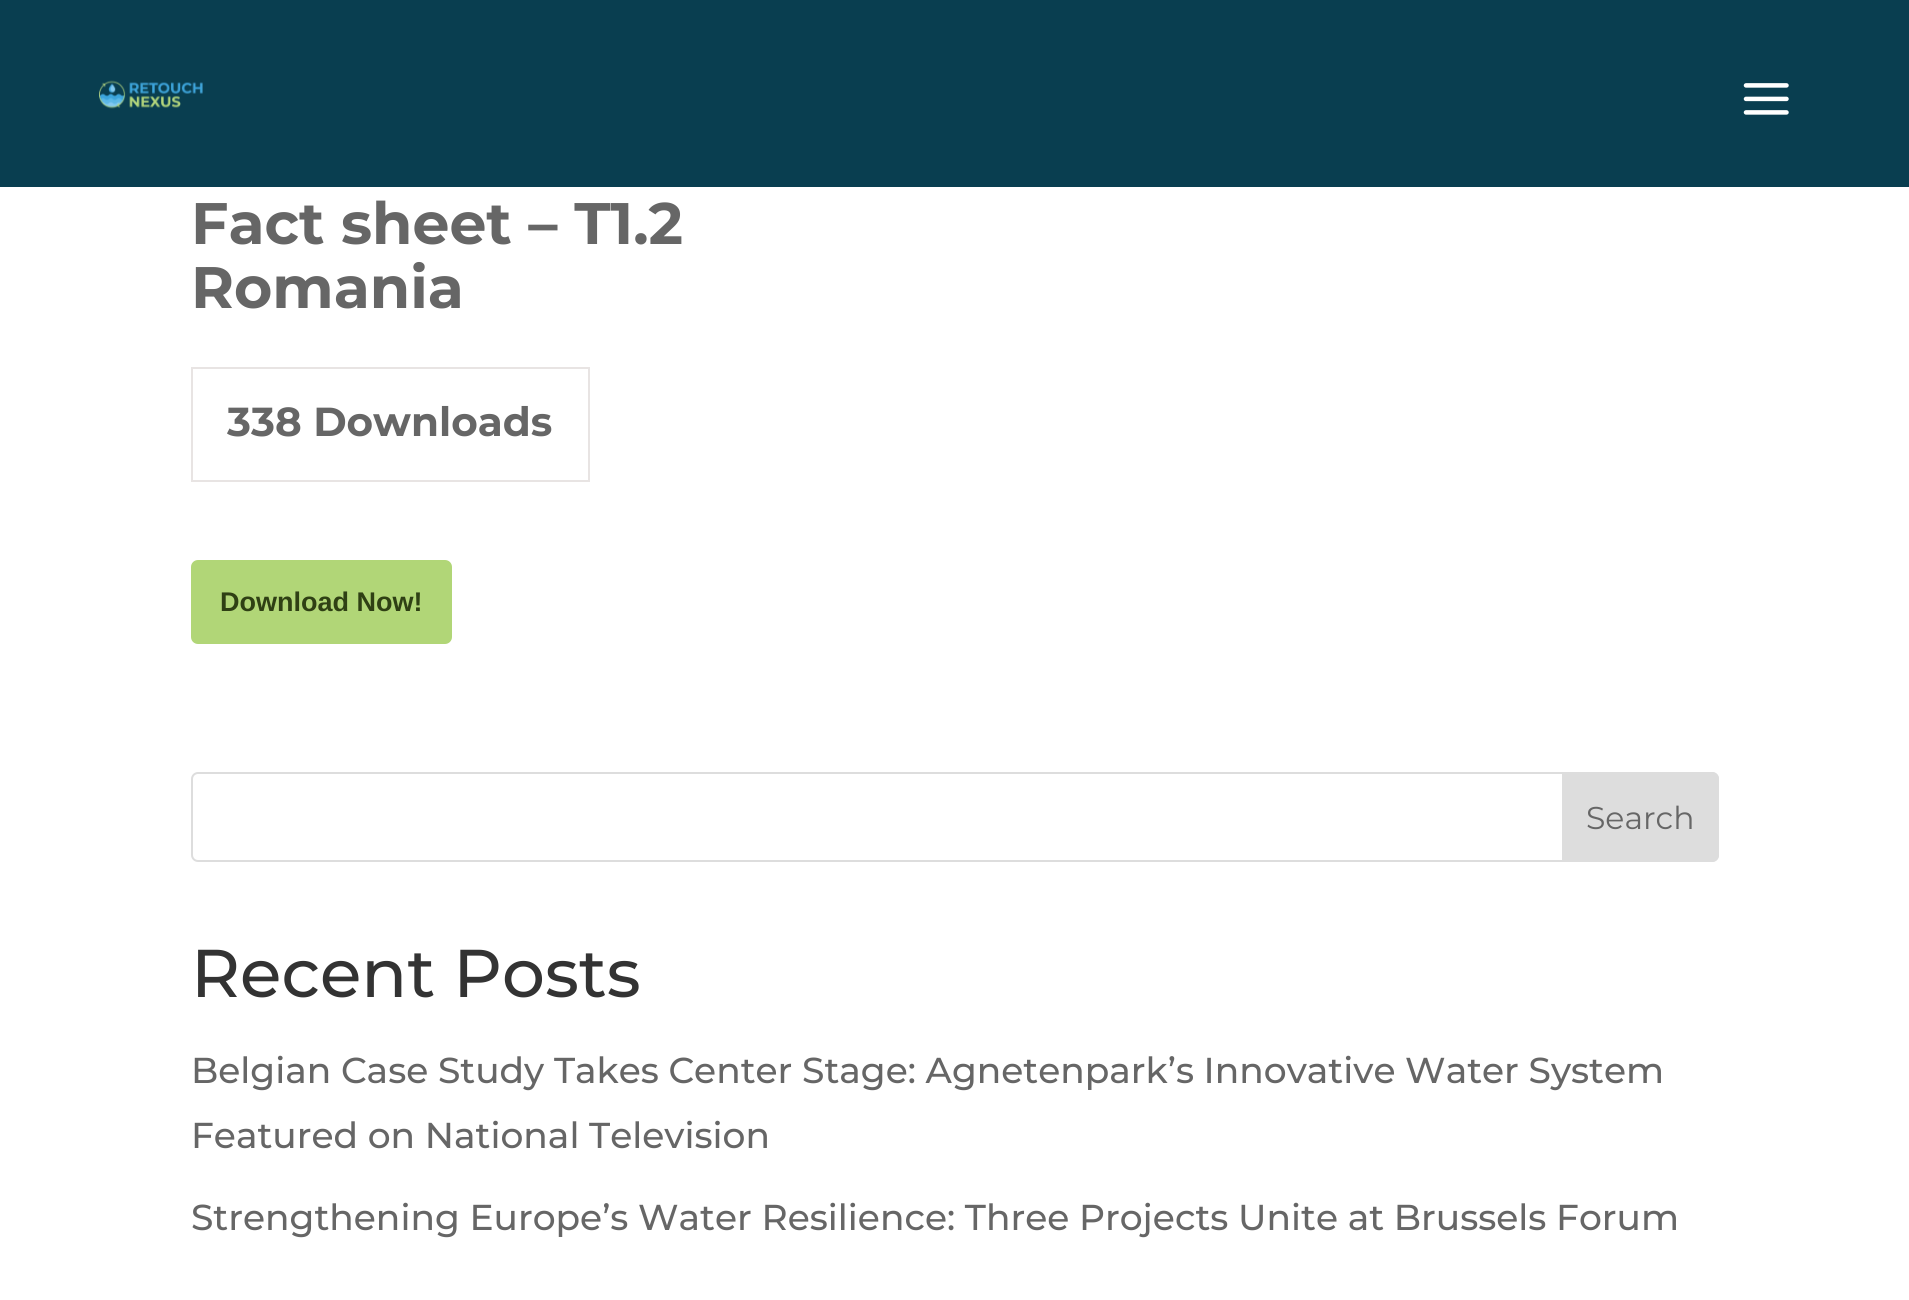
#include <cairo.h>
#include <math.h>
#include <stddef.h>

typedef struct { double x, y; const char *s; } line_t;

static void ink(cairo_t *ctx, unsigned color) {
    cairo_set_source_rgb(ctx, (color >> 16) / 255.0, (color >> 8 & 255) / 255.0, (color & 255) / 255.0);
}

static void round_path(cairo_t *ctx, double x, double y, double w, double h, double r) {
    cairo_new_sub_path(ctx);
    cairo_arc(ctx, x + w - r, y + h - r, r, 0, M_PI / 2);
    cairo_arc(ctx, x + r, y + h - r, r, M_PI / 2, M_PI);
    cairo_arc(ctx, x + r, y + r, r, M_PI, 1.5 * M_PI);
    cairo_arc(ctx, x + w - r, y + r, r, 1.5 * M_PI, 2 * M_PI);
    cairo_close_path(ctx);
}

static void paste(cairo_t *ctx, const char *path, double x, double y, double w, double h) {
    cairo_surface_t *image = cairo_image_surface_create_from_png(path);
    cairo_save(ctx);
    cairo_set_source_surface(ctx, image, x, y);
    cairo_rectangle(ctx, x, y, w, h);
    cairo_fill(ctx);
    cairo_restore(ctx);
    cairo_surface_destroy(image);
}

int main(void) {
    cairo_surface_t *surface = cairo_image_surface_create(CAIRO_FORMAT_RGB24, 1909, 1300);
    cairo_t *ctx = cairo_create(surface);
    cairo_font_options_t *options = cairo_font_options_create();
    cairo_font_options_set_hint_metrics(options, CAIRO_HINT_METRICS_OFF);
    cairo_font_options_set_hint_style(options, CAIRO_HINT_STYLE_NONE);
    cairo_set_font_options(ctx, options);
    cairo_set_miter_limit(ctx, 4);
    ink(ctx, 0xFFFFFF);
    cairo_paint(ctx);
    ink(ctx, 0x093E50);
    cairo_rectangle(ctx, 0, 0, 1909, 187);
    cairo_fill(ctx);
    paste(ctx, "media/1.png", 99, 80, 104, 29);
    paste(ctx, "media/2.png", 1743, 83, 46, 32);
    cairo_select_font_face(ctx, "Montserrat", CAIRO_FONT_SLANT_NORMAL, CAIRO_FONT_WEIGHT_BOLD);
    cairo_set_font_size(ctx, 58.5);
    ink(ctx, 0x666666);
    cairo_move_to(ctx, 191, 244);
    cairo_show_text(ctx, "Fact sheet – T1.2");
    cairo_move_to(ctx, 191, 308);
    cairo_show_text(ctx, "Romania");
    cairo_rectangle(ctx, 192, 368, 397, 113);
    ink(ctx, 0xE8E4E3);
    cairo_stroke(ctx);
    cairo_set_font_size(ctx, 40.5);
    ink(ctx, 0x666666);
    cairo_move_to(ctx, 227, 436);
    cairo_show_text(ctx, "338 Downloads");
    ink(ctx, 0xB1D677);
    round_path(ctx, 191, 560, 261, 84, 7);
    cairo_fill(ctx);
    cairo_select_font_face(ctx, "Liberation Sans", CAIRO_FONT_SLANT_NORMAL, CAIRO_FONT_WEIGHT_BOLD);
    cairo_set_font_size(ctx, 27);
    ink(ctx, 0x2F4014);
    cairo_move_to(ctx, 220, 611);
    cairo_show_text(ctx, "Download Now!");
    round_path(ctx, 192, 773, 1526, 88, 6);
    ink(ctx, 0xDDDDDD);
    cairo_stroke(ctx);
    cairo_new_path(ctx);
    cairo_move_to(ctx, 1563, 773);
    cairo_line_to(ctx, 1712, 773);
    cairo_curve_to(ctx, 1715.5, 773, 1718, 775.5, 1718, 779);
    cairo_line_to(ctx, 1718, 855);
    cairo_curve_to(ctx, 1718, 858.5, 1715.5, 861, 1712, 861);
    cairo_line_to(ctx, 1563, 861);
    cairo_close_path(ctx);
    cairo_fill_preserve(ctx);
    cairo_stroke(ctx);
    cairo_select_font_face(ctx, "Montserrat", CAIRO_FONT_SLANT_NORMAL, CAIRO_FONT_WEIGHT_NORMAL);
    cairo_set_font_size(ctx, 31.5);
    ink(ctx, 0x666666);
    cairo_move_to(ctx, 1586, 829);
    cairo_show_text(ctx, "Search");
    cairo_select_font_face(ctx, "Montserrat Medium", CAIRO_FONT_SLANT_NORMAL, CAIRO_FONT_WEIGHT_NORMAL);
    cairo_set_font_size(ctx, 67.5);
    ink(ctx, 0x333333);
    cairo_move_to(ctx, 191, 997);
    cairo_show_text(ctx, "Recent Posts");
    cairo_set_font_size(ctx, 36);
    ink(ctx, 0x666666);
    {
        static const line_t items[] = {
            {191, 1083, "Belgian Case Study Takes Center Stage: Agnetenpark’s Innovative Water System"},
            {191, 1148, "Featured on National Television"},
            {191, 1230, "Strengthening Europe’s Water Resilience: Three Projects Unite at Brussels Forum"},
        };
        for (size_t i = 0; i < sizeof items / sizeof *items; i++) {
            cairo_move_to(ctx, items[i].x, items[i].y);
            cairo_show_text(ctx, items[i].s);
        }
    }
    cairo_surface_write_to_png(surface, "image.png");
    cairo_font_options_destroy(options);
    cairo_destroy(ctx);
    cairo_surface_destroy(surface);
    return 0;
}
